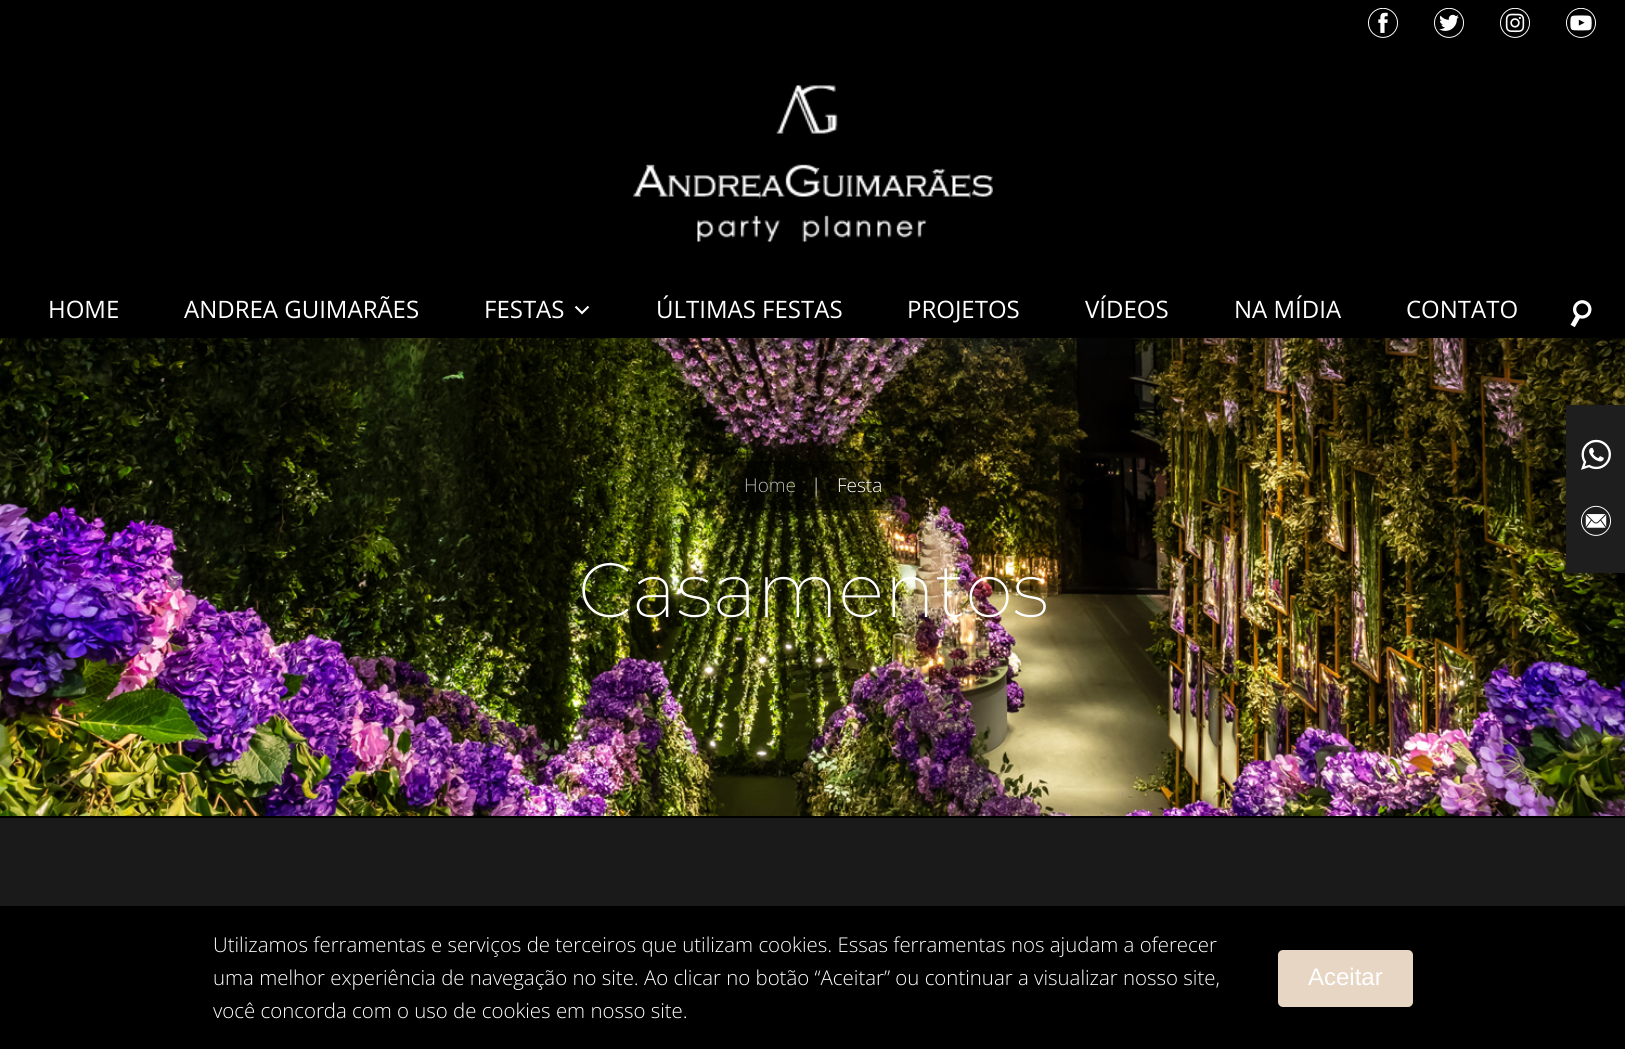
#include <cairo.h>
#include <math.h>
#include <stddef.h>

typedef struct { double x, y; const char *s; } line_t;

static void ink(cairo_t *ctx, unsigned color) {
    cairo_set_source_rgb(ctx, (color >> 16) / 255.0, (color >> 8 & 255) / 255.0, (color & 255) / 255.0);
}

static void round_path(cairo_t *ctx, double x, double y, double w, double h, double r) {
    cairo_new_sub_path(ctx);
    cairo_arc(ctx, x + w - r, y + h - r, r, 0, M_PI / 2);
    cairo_arc(ctx, x + r, y + h - r, r, M_PI / 2, M_PI);
    cairo_arc(ctx, x + r, y + r, r, M_PI, 1.5 * M_PI);
    cairo_arc(ctx, x + w - r, y + r, r, 1.5 * M_PI, 2 * M_PI);
    cairo_close_path(ctx);
}

static void paste(cairo_t *ctx, const char *path, double x, double y, double w, double h) {
    cairo_surface_t *image = cairo_image_surface_create_from_png(path);
    cairo_save(ctx);
    cairo_set_source_surface(ctx, image, x, y);
    cairo_rectangle(ctx, x, y, w, h);
    cairo_fill(ctx);
    cairo_restore(ctx);
    cairo_surface_destroy(image);
}

int main(void) {
    cairo_surface_t *surface = cairo_image_surface_create(CAIRO_FORMAT_RGB24, 1625, 1049);
    cairo_t *ctx = cairo_create(surface);
    cairo_font_options_t *options = cairo_font_options_create();
    cairo_font_options_set_hint_metrics(options, CAIRO_HINT_METRICS_OFF);
    cairo_font_options_set_hint_style(options, CAIRO_HINT_STYLE_NONE);
    cairo_set_font_options(ctx, options);
    cairo_set_miter_limit(ctx, 4);
    ink(ctx, 0x1A1A1A);
    cairo_paint(ctx);
    ink(ctx, 0x000000);
    cairo_rectangle(ctx, 0, 0, 1625, 338);
    cairo_fill(ctx);
    paste(ctx, "media/1.png", 633, 85, 360, 157);
    paste(ctx, "media/2.png", 1368, 8, 30, 30);
    paste(ctx, "media/3.png", 1434, 8, 30, 30);
    paste(ctx, "media/4.png", 1500, 8, 30, 30);
    paste(ctx, "media/5.png", 1566, 8, 30, 30);
    cairo_select_font_face(ctx, "Open Sans", CAIRO_FONT_SLANT_NORMAL, CAIRO_FONT_WEIGHT_NORMAL);
    cairo_set_font_size(ctx, 24);
    ink(ctx, 0xFFFFFF);
    {
        static const line_t items[] = {
            {48, 318, "HOME"},
            {184, 318, "ANDREA GUIMARÃES"},
            {484, 318, "FESTAS"},
        };
        for (size_t i = 0; i < sizeof items / sizeof *items; i++) {
            cairo_move_to(ctx, items[i].x, items[i].y);
            cairo_show_text(ctx, items[i].s);
        }
    }
    paste(ctx, "media/6.png", 574, 305, 16, 10);
    {
        static const line_t items[] = {
            {656, 318, "ÚLTIMAS FESTAS"},
            {907, 318, "PROJETOS"},
            {1085, 318, "VÍDEOS"},
            {1234, 318, "NA MÍDIA"},
            {1406, 318, "CONTATO"},
        };
        for (size_t i = 0; i < sizeof items / sizeof *items; i++) {
            cairo_move_to(ctx, items[i].x, items[i].y);
            cairo_show_text(ctx, items[i].s);
        }
    }
    paste(ctx, "media/7.png", 1570, 300, 22, 28);
    paste(ctx, "media/8.png", 0, 338, 1625, 478);
    ink(ctx, 0x000000);
    cairo_rectangle(ctx, 0, 816, 1625, 2);
    cairo_fill(ctx);
    cairo_set_source_rgba(ctx, 0, 0, 0, 0.5);
    round_path(ctx, 726, 461, 174, 49, 5);
    cairo_fill(ctx);
    cairo_select_font_face(ctx, "Open Sans Light", CAIRO_FONT_SLANT_NORMAL, CAIRO_FONT_WEIGHT_NORMAL);
    cairo_set_font_size(ctx, 19);
    ink(ctx, 0xB5B6B3);
    cairo_move_to(ctx, 744, 492);
    cairo_show_text(ctx, "Home");
    ink(ctx, 0xFFFFFF);
    cairo_move_to(ctx, 811, 492);
    cairo_show_text(ctx, "|");
    cairo_move_to(ctx, 837, 492);
    cairo_show_text(ctx, "Festa");
    cairo_select_font_face(ctx, "Montserrat ExtraLight", CAIRO_FONT_SLANT_NORMAL, CAIRO_FONT_WEIGHT_NORMAL);
    cairo_set_font_size(ctx, 76.75);
    cairo_move_to(ctx, 578, 617);
    cairo_show_text(ctx, "Casamentos");
    cairo_set_source_rgba(ctx, 0, 0, 0, 0.4);
    round_path(ctx, 791, 669, 45, 24, 5);
    cairo_fill(ctx);
    ink(ctx, 0x1E1E1E);
    cairo_rectangle(ctx, 1566, 405, 59, 168);
    cairo_fill(ctx);
    paste(ctx, "media/9.png", 1581, 439, 30, 31);
    paste(ctx, "media/10.png", 1581, 505, 30, 31);
    ink(ctx, 0x000000);
    cairo_rectangle(ctx, 0, 906, 1625, 143);
    cairo_fill(ctx);
    cairo_select_font_face(ctx, "Open Sans Light", CAIRO_FONT_SLANT_NORMAL, CAIRO_FONT_WEIGHT_NORMAL);
    cairo_set_font_size(ctx, 20.4);
    ink(ctx, 0xFFFFFF);
    {
        static const line_t items[] = {
            {213, 952, "Utilizamos ferramentas e serviços de terceiros que utilizam cookies. Essas ferramentas nos ajudam a oferecer"},
            {213, 985, "uma melhor experiência de navegação no site. Ao clicar no botão “Aceitar” ou continuar a visualizar nosso site,"},
            {213, 1018, "você concorda com o uso de cookies em nosso site."},
        };
        for (size_t i = 0; i < sizeof items / sizeof *items; i++) {
            cairo_move_to(ctx, items[i].x, items[i].y);
            cairo_show_text(ctx, items[i].s);
        }
    }
    ink(ctx, 0xE7D6C4);
    round_path(ctx, 1278, 950, 135, 57, 5);
    cairo_fill(ctx);
    cairo_select_font_face(ctx, "Liberation Sans", CAIRO_FONT_SLANT_NORMAL, CAIRO_FONT_WEIGHT_NORMAL);
    cairo_set_font_size(ctx, 24);
    ink(ctx, 0xFFFFFF);
    cairo_move_to(ctx, 1308, 985);
    cairo_show_text(ctx, "Aceitar");
    cairo_surface_write_to_png(surface, "image.png");
    cairo_font_options_destroy(options);
    cairo_destroy(ctx);
    cairo_surface_destroy(surface);
    return 0;
}
